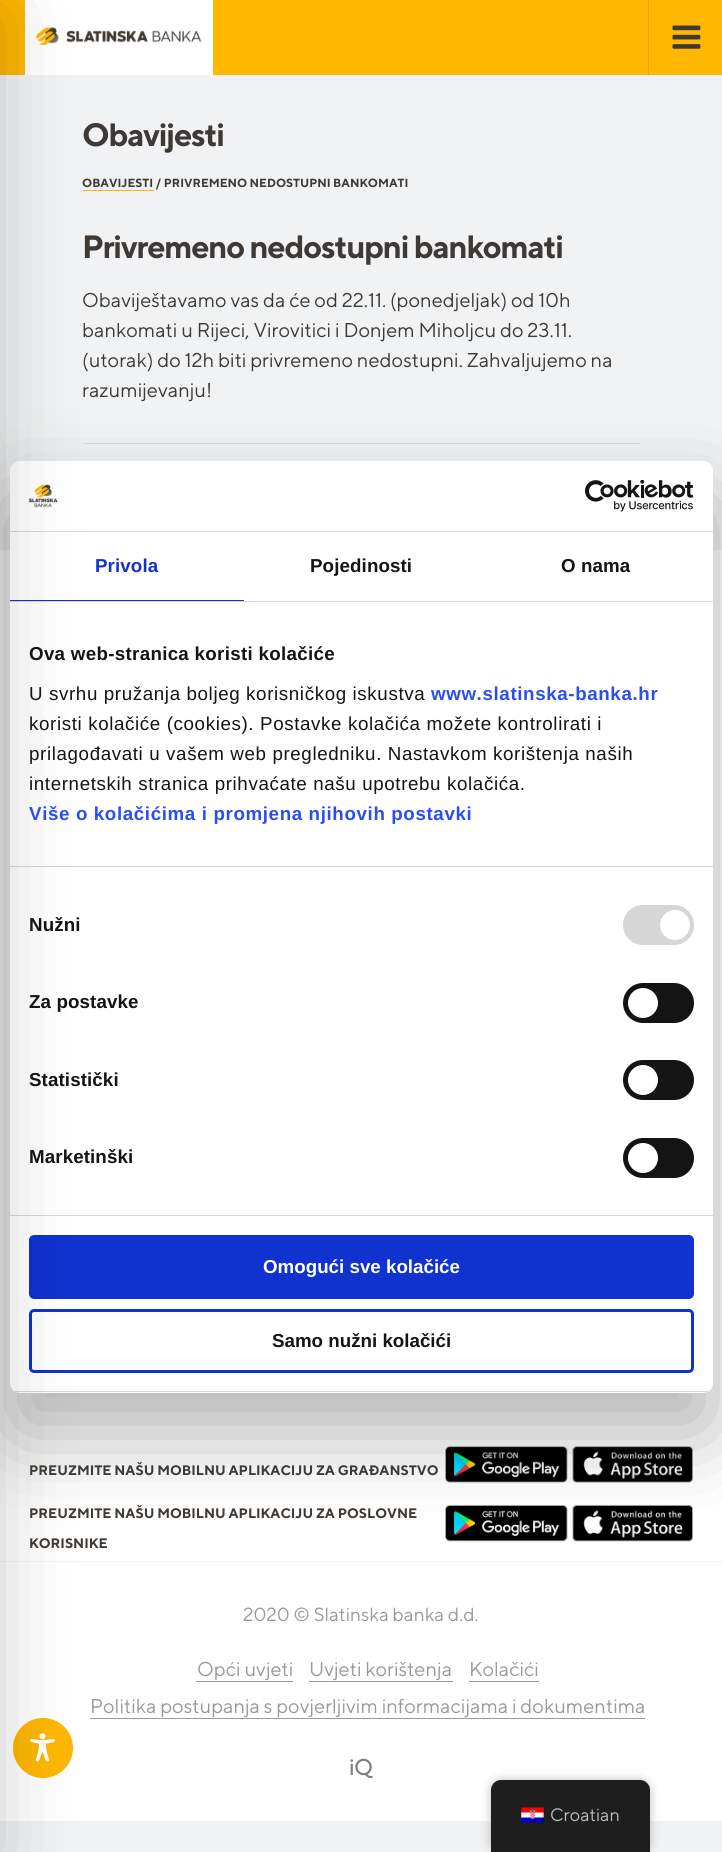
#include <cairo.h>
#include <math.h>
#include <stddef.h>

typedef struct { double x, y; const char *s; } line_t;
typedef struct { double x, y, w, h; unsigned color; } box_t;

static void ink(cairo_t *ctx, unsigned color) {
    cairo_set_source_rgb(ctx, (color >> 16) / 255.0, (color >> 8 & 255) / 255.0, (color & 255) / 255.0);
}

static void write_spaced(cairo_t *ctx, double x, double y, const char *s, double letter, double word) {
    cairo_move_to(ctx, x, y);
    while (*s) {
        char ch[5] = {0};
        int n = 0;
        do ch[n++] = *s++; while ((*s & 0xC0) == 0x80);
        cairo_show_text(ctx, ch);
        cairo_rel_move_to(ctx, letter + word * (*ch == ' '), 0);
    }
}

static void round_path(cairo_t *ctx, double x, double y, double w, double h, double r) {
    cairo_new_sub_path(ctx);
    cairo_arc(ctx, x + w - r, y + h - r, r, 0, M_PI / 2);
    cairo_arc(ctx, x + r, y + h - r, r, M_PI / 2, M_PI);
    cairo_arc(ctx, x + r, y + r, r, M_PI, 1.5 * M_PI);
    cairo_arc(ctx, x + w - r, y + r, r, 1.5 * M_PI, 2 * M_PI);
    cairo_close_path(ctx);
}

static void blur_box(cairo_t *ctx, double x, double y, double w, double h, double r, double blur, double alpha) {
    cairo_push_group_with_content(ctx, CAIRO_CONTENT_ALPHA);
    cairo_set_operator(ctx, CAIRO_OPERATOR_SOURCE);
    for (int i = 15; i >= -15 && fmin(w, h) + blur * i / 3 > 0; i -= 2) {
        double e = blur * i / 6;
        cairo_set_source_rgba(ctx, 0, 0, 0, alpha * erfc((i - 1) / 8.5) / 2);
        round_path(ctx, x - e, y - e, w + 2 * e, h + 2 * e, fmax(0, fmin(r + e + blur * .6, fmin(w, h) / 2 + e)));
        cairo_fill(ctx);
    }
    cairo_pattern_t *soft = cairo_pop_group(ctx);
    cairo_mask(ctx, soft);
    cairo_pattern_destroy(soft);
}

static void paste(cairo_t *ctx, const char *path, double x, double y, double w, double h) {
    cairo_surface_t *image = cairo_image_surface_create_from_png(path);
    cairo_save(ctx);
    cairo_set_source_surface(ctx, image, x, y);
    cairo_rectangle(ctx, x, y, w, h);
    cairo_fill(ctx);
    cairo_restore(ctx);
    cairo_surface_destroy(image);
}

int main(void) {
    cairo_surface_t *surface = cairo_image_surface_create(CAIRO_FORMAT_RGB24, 722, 1852);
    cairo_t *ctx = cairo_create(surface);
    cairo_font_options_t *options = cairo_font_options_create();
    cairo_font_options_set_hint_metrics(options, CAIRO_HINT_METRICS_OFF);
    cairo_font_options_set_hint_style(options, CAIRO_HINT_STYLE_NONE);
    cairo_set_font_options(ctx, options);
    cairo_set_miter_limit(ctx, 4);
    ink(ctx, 0xF1F2F3);
    cairo_paint(ctx);
    ink(ctx, 0xFFB700);
    cairo_rectangle(ctx, 0, 0, 722, 75);
    cairo_fill(ctx);
    ink(ctx, 0xFFFFFF);
    cairo_rectangle(ctx, 25, 0, 188, 75);
    cairo_fill(ctx);
    paste(ctx, "media/1.png", 36, 27, 166, 18);
    ink(ctx, 0xE6A500);
    cairo_rectangle(ctx, 648, 0, 1, 75);
    cairo_fill(ctx);
    paste(ctx, "media/2.png", 672, 25, 29, 24);
    {
        static const box_t items[] = {
            {83, 190, 71, 1, 0xFFB700},
            {83, 443, 557, 1, 0xDDDDDD},
            {0, 550, 722, 1271, 0xFFFFFF},
            {0, 1561, 722, 1, 0xF1F2F3},
        };
        for (size_t i = 0; i < sizeof items / sizeof *items; i++) {
            ink(ctx, items[i].color);
            cairo_rectangle(ctx, items[i].x, items[i].y, items[i].w, items[i].h);
            cairo_fill(ctx);
        }
    }
    paste(ctx, "media/5.png", 445, 1446, 123, 37);
    paste(ctx, "media/6.png", 572, 1446, 121, 37);
    paste(ctx, "media/7.png", 445, 1505, 123, 37);
    paste(ctx, "media/8.png", 572, 1505, 121, 37);
    ink(ctx, 0x000000);
    blur_box(ctx, 10, 501, 703, 932, 10, 42.5, 0.3);
    ink(ctx, 0xFFFFFF);
    round_path(ctx, 10, 461, 703, 932, 10);
    cairo_fill(ctx);
    ink(ctx, 0xD6D6D6);
    cairo_rectangle(ctx, 10, 531, 703, 1);
    cairo_fill(ctx);
    paste(ctx, "media/3.png", 28, 484, 30, 24);
    {
        static const box_t items[] = {
            {10, 601, 703, 1, 0xD6D6D6},
            {10, 600, 234, 1, 0x1032CF},
            {10, 866, 703, 1, 0xD6D6D6},
            {10, 1215, 703, 1, 0xD6D6D6},
        };
        for (size_t i = 0; i < sizeof items / sizeof *items; i++) {
            ink(ctx, items[i].color);
            cairo_rectangle(ctx, items[i].x, items[i].y, items[i].w, items[i].h);
            cairo_fill(ctx);
        }
    }
    cairo_save(ctx);
    round_path(ctx, 10, 461, 703, 932, 10);
    cairo_clip(ctx);
    cairo_rectangle(ctx, 10, 1391, 703, 1);
    cairo_fill(ctx);
    cairo_restore(ctx);
    ink(ctx, 0x1032CF);
    round_path(ctx, 30.5, 1236.5, 662, 61, 3.5);
    cairo_fill_preserve(ctx);
    cairo_set_line_width(ctx, 3);
    cairo_stroke(ctx);
    round_path(ctx, 30.5, 1310.5, 662, 61, 3.5);
    cairo_stroke(ctx);
    ink(ctx, 0xFFB700);
    cairo_arc(ctx, 43, 1748, 30, 0, 2 * M_PI);
    cairo_fill(ctx);
    paste(ctx, "media/9.png", 30, 1733, 25, 29);
    ink(ctx, 0x999999);
    cairo_rectangle(ctx, 90, 1718, 555, 1);
    cairo_fill(ctx);
    ink(ctx, 0x000000);
    blur_box(ctx, -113, 13, 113, 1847, 0, 37.5, 0.2);
    cairo_select_font_face(ctx, "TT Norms", CAIRO_FONT_SLANT_NORMAL, CAIRO_FONT_WEIGHT_BOLD);
    cairo_set_font_size(ctx, 32.25);
    ink(ctx, 0x3E3935);
    write_spaced(ctx, 82, 146, "Obavijesti", -1.25, 0);
    cairo_set_font_size(ctx, 11.8);
    cairo_move_to(ctx, 82, 187);
    cairo_show_text(ctx, "OBAVIJESTI / PRIVREMENO NEDOSTUPNI BANKOMATI");
    cairo_set_font_size(ctx, 32.25);
    write_spaced(ctx, 82, 258, "Privremeno nedostupni bankomati", -1.25, 0);
    cairo_select_font_face(ctx, "TT Norms", CAIRO_FONT_SLANT_NORMAL, CAIRO_FONT_WEIGHT_NORMAL);
    cairo_set_font_size(ctx, 20);
    {
        static const line_t items[] = {
            {82, 307, "Obaviještavamo vas da će od 22.11. (ponedjeljak) od 10h"},
            {82, 337, "bankomati u Rijeci, Virovitici i Donjem Miholjcu do 23.11."},
            {82, 367, "(utorak) do 12h biti privremeno nedostupni. Zahvaljujemo na"},
            {82, 397, "razumijevanju!"},
        };
        for (size_t i = 0; i < sizeof items / sizeof *items; i++) {
            cairo_move_to(ctx, items[i].x, items[i].y);
            cairo_show_text(ctx, items[i].s);
        }
    }
    paste(ctx, "media/4.png", 585, 480, 109, 32);
    cairo_select_font_face(ctx, "Liberation Sans", CAIRO_FONT_SLANT_NORMAL, CAIRO_FONT_WEIGHT_BOLD);
    cairo_set_font_size(ctx, 18.75);
    ink(ctx, 0x1032CF);
    write_spaced(ctx, 95, 572, "Privola", 0.1, 0);
    ink(ctx, 0x141414);
    write_spaced(ctx, 310, 572, "Pojedinosti", 0.1, 0);
    write_spaced(ctx, 561, 572, "O nama", 0.1, 0);
    write_spaced(ctx, 29, 660, "Ova web-stranica koristi kolačiće", 0.3, 0);
    cairo_select_font_face(ctx, "Liberation Sans", CAIRO_FONT_SLANT_NORMAL, CAIRO_FONT_WEIGHT_NORMAL);
    write_spaced(ctx, 29, 700, "U svrhu pružanja boljeg korisničkog iskustva", 0.62, 0);
    cairo_select_font_face(ctx, "Liberation Sans", CAIRO_FONT_SLANT_NORMAL, CAIRO_FONT_WEIGHT_BOLD);
    ink(ctx, 0x2A4EEF);
    write_spaced(ctx, 431, 700, "www.slatinska-banka.hr", 0.62, 0);
    cairo_select_font_face(ctx, "Liberation Sans", CAIRO_FONT_SLANT_NORMAL, CAIRO_FONT_WEIGHT_NORMAL);
    ink(ctx, 0x141414);
    {
        static const line_t items[] = {
            {29, 730, "koristi kolačiće (cookies). Postavke kolačića možete kontrolirati i"},
            {29, 760, "prilagođavati u vašem web pregledniku. Nastavkom korištenja naših"},
            {29, 790, "internetskih stranica prihvaćate našu upotrebu kolačića."},
        };
        for (size_t i = 0; i < sizeof items / sizeof *items; i++) {
            write_spaced(ctx, items[i].x, items[i].y, items[i].s, 0.62, 0);
        }
    }
    cairo_select_font_face(ctx, "Liberation Sans", CAIRO_FONT_SLANT_NORMAL, CAIRO_FONT_WEIGHT_BOLD);
    ink(ctx, 0x2A4EEF);
    write_spaced(ctx, 29, 820, "Više o kolačićima i promjena njihovih postavki", 0.62, 0);
    ink(ctx, 0x141414);
    write_spaced(ctx, 29, 931, "Nužni", 0.1, 0);
    ink(ctx, 0xD6D6D6);
    round_path(ctx, 623, 905, 71, 40, 20);
    cairo_fill(ctx);
    ink(ctx, 0xFFFFFF);
    cairo_arc(ctx, 675, 925, 15, 0, 2 * M_PI);
    cairo_fill(ctx);
    ink(ctx, 0x141414);
    write_spaced(ctx, 29, 1008, "Za postavke", 0.1, 0);
    round_path(ctx, 623, 983, 71, 40, 20);
    cairo_fill(ctx);
    ink(ctx, 0xFFFFFF);
    cairo_arc(ctx, 643, 1003, 15, 0, 2 * M_PI);
    cairo_fill(ctx);
    ink(ctx, 0x141414);
    write_spaced(ctx, 29, 1086, "Statistički", 0.1, 0);
    round_path(ctx, 623, 1060, 71, 40, 20);
    cairo_fill(ctx);
    ink(ctx, 0xFFFFFF);
    cairo_arc(ctx, 643, 1080, 15, 0, 2 * M_PI);
    cairo_fill(ctx);
    ink(ctx, 0x141414);
    write_spaced(ctx, 29, 1163, "Marketinški", 0.1, 0);
    round_path(ctx, 623, 1138, 71, 40, 20);
    cairo_fill(ctx);
    ink(ctx, 0xFFFFFF);
    cairo_arc(ctx, 643, 1158, 15, 0, 2 * M_PI);
    cairo_fill(ctx);
    cairo_move_to(ctx, 263, 1273);
    cairo_show_text(ctx, "Omogući sve kolačiće");
    ink(ctx, 0x141414);
    cairo_move_to(ctx, 272, 1347);
    cairo_show_text(ctx, "Samo nužni kolačići");
    cairo_select_font_face(ctx, "TT Norms", CAIRO_FONT_SLANT_NORMAL, CAIRO_FONT_WEIGHT_BOLD);
    cairo_set_font_size(ctx, 13.75);
    ink(ctx, 0x3E3935);
    {
        static const line_t items[] = {
            {29, 1475, "PREUZMITE NAŠU MOBILNU APLIKACIJU ZA GRAĐANSTVO"},
            {29, 1518, "PREUZMITE NAŠU MOBILNU APLIKACIJU ZA POSLOVNE"},
            {29, 1548, "KORISNIKE"},
        };
        for (size_t i = 0; i < sizeof items / sizeof *items; i++) {
            cairo_move_to(ctx, items[i].x, items[i].y);
            cairo_show_text(ctx, items[i].s);
        }
    }
    cairo_select_font_face(ctx, "TT Norms", CAIRO_FONT_SLANT_NORMAL, CAIRO_FONT_WEIGHT_NORMAL);
    cairo_set_font_size(ctx, 19);
    ink(ctx, 0x999999);
    cairo_move_to(ctx, 243, 1621);
    cairo_show_text(ctx, "2020 © Slatinska banka d.d.");
    cairo_set_font_size(ctx, 20);
    cairo_move_to(ctx, 197, 1676);
    cairo_show_text(ctx, "Opći uvjeti");
    cairo_rectangle(ctx, 196, 1681, 97, 1);
    cairo_fill(ctx);
    cairo_move_to(ctx, 309, 1676);
    cairo_show_text(ctx, "Uvjeti korištenja");
    cairo_rectangle(ctx, 309, 1681, 144, 1);
    cairo_fill(ctx);
    cairo_move_to(ctx, 469, 1676);
    cairo_show_text(ctx, "Kolačići");
    cairo_rectangle(ctx, 469, 1681, 70, 1);
    cairo_fill(ctx);
    cairo_move_to(ctx, 90, 1713);
    cairo_show_text(ctx, "Politika postupanja s povjerljivim informacijama i dokumentima");
    cairo_select_font_face(ctx, "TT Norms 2", CAIRO_FONT_SLANT_NORMAL, CAIRO_FONT_WEIGHT_BOLD);
    cairo_set_font_size(ctx, 22);
    ink(ctx, 0x7F7F7F);
    cairo_move_to(ctx, 349, 1775);
    cairo_show_text(ctx, "iQ");
    ink(ctx, 0x000000);
    blur_box(ctx, 491, 1780, 159, 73, 10, 5, 0.25);
    ink(ctx, 0x1E1E1E);
    cairo_new_path(ctx);
    cairo_move_to(ctx, 501, 1780);
    cairo_line_to(ctx, 640, 1780);
    cairo_curve_to(ctx, 645.5, 1780, 650, 1784.5, 650, 1790);
    cairo_line_to(ctx, 650, 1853);
    cairo_line_to(ctx, 491, 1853);
    cairo_line_to(ctx, 491, 1790);
    cairo_curve_to(ctx, 491, 1784.5, 495.5, 1780, 501, 1780);
    cairo_close_path(ctx);
    cairo_fill(ctx);
    paste(ctx, "media/10.png", 521, 1807, 23, 16);
    cairo_select_font_face(ctx, "TT Norms", CAIRO_FONT_SLANT_NORMAL, CAIRO_FONT_WEIGHT_NORMAL);
    cairo_set_font_size(ctx, 18);
    ink(ctx, 0xBDBDBD);
    cairo_move_to(ctx, 550, 1821);
    cairo_show_text(ctx, "Croatian");
    cairo_surface_write_to_png(surface, "image.png");
    cairo_font_options_destroy(options);
    cairo_destroy(ctx);
    cairo_surface_destroy(surface);
    return 0;
}
